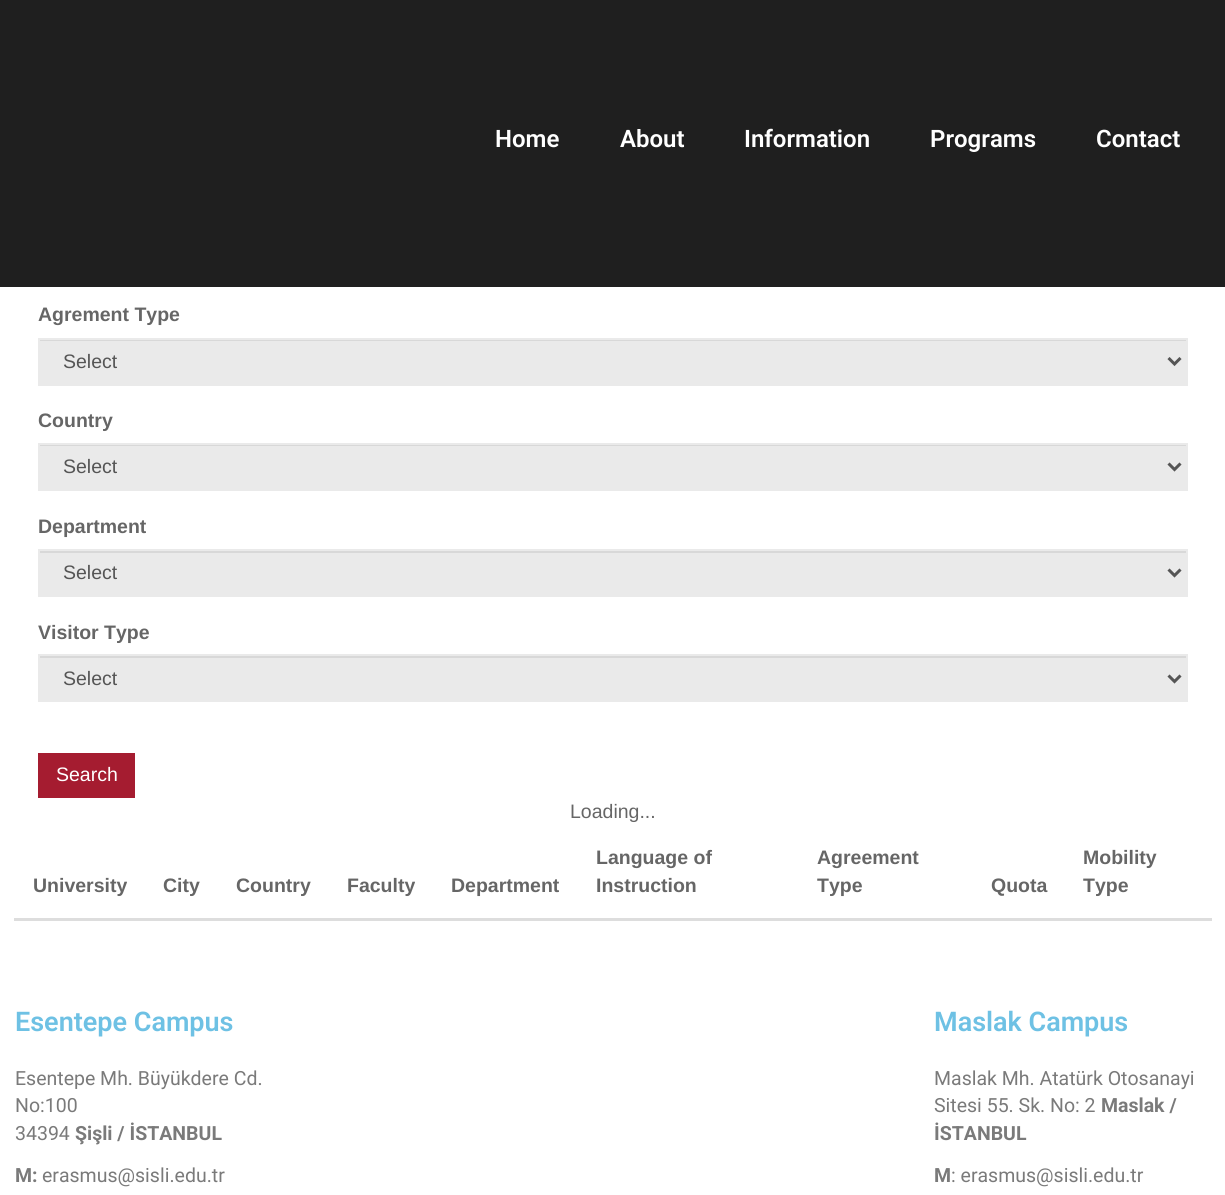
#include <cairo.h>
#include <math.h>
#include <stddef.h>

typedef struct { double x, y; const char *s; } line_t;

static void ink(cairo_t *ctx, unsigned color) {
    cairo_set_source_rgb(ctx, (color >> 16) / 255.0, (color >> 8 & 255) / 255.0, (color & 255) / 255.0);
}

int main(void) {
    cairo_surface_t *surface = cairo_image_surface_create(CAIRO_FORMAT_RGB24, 1225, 1195);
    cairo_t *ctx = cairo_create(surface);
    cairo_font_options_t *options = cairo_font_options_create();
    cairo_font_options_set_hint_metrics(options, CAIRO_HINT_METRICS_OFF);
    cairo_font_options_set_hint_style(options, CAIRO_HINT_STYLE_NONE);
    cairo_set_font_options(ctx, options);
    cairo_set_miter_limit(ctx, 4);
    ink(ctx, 0xFFFFFF);
    cairo_paint(ctx);
    ink(ctx, 0x1F1F1F);
    cairo_rectangle(ctx, 0, 0, 1225, 287);
    cairo_fill(ctx);
    cairo_select_font_face(ctx, "Roboto SemiBold", CAIRO_FONT_SLANT_NORMAL, CAIRO_FONT_WEIGHT_NORMAL);
    cairo_set_font_size(ctx, 24);
    ink(ctx, 0xFFFFFF);
    {
        static const line_t items[] = {
            {495, 147, "Home"},
            {620, 147, "About"},
            {744, 147, "Information"},
            {930, 147, "Programs"},
            {1096, 147, "Contact"},
        };
        for (size_t i = 0; i < sizeof items / sizeof *items; i++) {
            cairo_move_to(ctx, items[i].x, items[i].y);
            cairo_show_text(ctx, items[i].s);
        }
    }
    cairo_select_font_face(ctx, "Liberation Sans", CAIRO_FONT_SLANT_NORMAL, CAIRO_FONT_WEIGHT_BOLD);
    cairo_set_font_size(ctx, 19.5);
    ink(ctx, 0x666666);
    cairo_move_to(ctx, 38, 321);
    cairo_show_text(ctx, "Agrement Type");
    ink(ctx, 0xEAEAEA);
    cairo_rectangle(ctx, 40, 341, 1146, 43);
    cairo_fill(ctx);
    ink(ctx, 0xD8D8D8);
    cairo_rectangle(ctx, 39, 340, 1148, 1);
    cairo_fill(ctx);
    cairo_rectangle(ctx, 39, 339, 1148, 46);
    ink(ctx, 0xEAEAEA);
    cairo_stroke(ctx);
    cairo_new_path(ctx);
    cairo_move_to(ctx, 1168.5, 358);
    cairo_line_to(ctx, 1174.5, 364);
    cairo_line_to(ctx, 1180.5, 358);
    ink(ctx, 0x555555);
    cairo_set_line_width(ctx, 3);
    cairo_stroke(ctx);
    cairo_select_font_face(ctx, "Liberation Sans", CAIRO_FONT_SLANT_NORMAL, CAIRO_FONT_WEIGHT_NORMAL);
    cairo_move_to(ctx, 63, 368);
    cairo_show_text(ctx, "Select");
    cairo_select_font_face(ctx, "Liberation Sans", CAIRO_FONT_SLANT_NORMAL, CAIRO_FONT_WEIGHT_BOLD);
    ink(ctx, 0x666666);
    cairo_move_to(ctx, 38, 427);
    cairo_show_text(ctx, "Country");
    ink(ctx, 0xEAEAEA);
    cairo_rectangle(ctx, 40, 446, 1146, 43);
    cairo_fill(ctx);
    ink(ctx, 0xD8D8D8);
    cairo_rectangle(ctx, 39, 445, 1148, 1);
    cairo_fill(ctx);
    cairo_rectangle(ctx, 39, 444, 1148, 46);
    ink(ctx, 0xEAEAEA);
    cairo_set_line_width(ctx, 2);
    cairo_stroke(ctx);
    cairo_new_path(ctx);
    cairo_move_to(ctx, 1168.5, 463.5);
    cairo_line_to(ctx, 1174.5, 469.5);
    cairo_line_to(ctx, 1180.5, 463.5);
    ink(ctx, 0x555555);
    cairo_set_line_width(ctx, 3);
    cairo_stroke(ctx);
    cairo_select_font_face(ctx, "Liberation Sans", CAIRO_FONT_SLANT_NORMAL, CAIRO_FONT_WEIGHT_NORMAL);
    cairo_move_to(ctx, 63, 473);
    cairo_show_text(ctx, "Select");
    cairo_select_font_face(ctx, "Liberation Sans", CAIRO_FONT_SLANT_NORMAL, CAIRO_FONT_WEIGHT_BOLD);
    ink(ctx, 0x666666);
    cairo_move_to(ctx, 38, 533);
    cairo_show_text(ctx, "Department");
    ink(ctx, 0xEAEAEA);
    cairo_rectangle(ctx, 40, 553, 1146, 42);
    cairo_fill(ctx);
    ink(ctx, 0xD8D8D8);
    cairo_rectangle(ctx, 39, 551, 1148, 2);
    cairo_fill(ctx);
    cairo_rectangle(ctx, 39, 550, 1148, 46);
    ink(ctx, 0xEAEAEA);
    cairo_set_line_width(ctx, 2);
    cairo_stroke(ctx);
    cairo_new_path(ctx);
    cairo_move_to(ctx, 1168.5, 569.5);
    cairo_line_to(ctx, 1174.5, 575.5);
    cairo_line_to(ctx, 1180.5, 569.5);
    ink(ctx, 0x555555);
    cairo_set_line_width(ctx, 3);
    cairo_stroke(ctx);
    cairo_select_font_face(ctx, "Liberation Sans", CAIRO_FONT_SLANT_NORMAL, CAIRO_FONT_WEIGHT_NORMAL);
    cairo_move_to(ctx, 63, 579);
    cairo_show_text(ctx, "Select");
    cairo_select_font_face(ctx, "Liberation Sans", CAIRO_FONT_SLANT_NORMAL, CAIRO_FONT_WEIGHT_BOLD);
    ink(ctx, 0x666666);
    cairo_move_to(ctx, 38, 639);
    cairo_show_text(ctx, "Visitor Type");
    ink(ctx, 0xEAEAEA);
    cairo_rectangle(ctx, 40, 658, 1146, 42);
    cairo_fill(ctx);
    ink(ctx, 0xD8D8D8);
    cairo_rectangle(ctx, 39, 656, 1148, 2);
    cairo_fill(ctx);
    cairo_rectangle(ctx, 39, 655, 1148, 46);
    ink(ctx, 0xEAEAEA);
    cairo_set_line_width(ctx, 2);
    cairo_stroke(ctx);
    cairo_new_path(ctx);
    cairo_move_to(ctx, 1168.5, 675.5);
    cairo_line_to(ctx, 1174.5, 681.5);
    cairo_line_to(ctx, 1180.5, 675.5);
    ink(ctx, 0x555555);
    cairo_set_line_width(ctx, 3);
    cairo_stroke(ctx);
    cairo_select_font_face(ctx, "Liberation Sans", CAIRO_FONT_SLANT_NORMAL, CAIRO_FONT_WEIGHT_NORMAL);
    cairo_move_to(ctx, 63, 685);
    cairo_show_text(ctx, "Select");
    ink(ctx, 0xA51C30);
    cairo_rectangle(ctx, 38, 753, 97, 45);
    cairo_fill(ctx);
    ink(ctx, 0xFFFFFF);
    cairo_move_to(ctx, 56, 781);
    cairo_show_text(ctx, "Search");
    ink(ctx, 0x666666);
    cairo_move_to(ctx, 570, 818);
    cairo_show_text(ctx, "Loading...");
    cairo_select_font_face(ctx, "Liberation Sans", CAIRO_FONT_SLANT_NORMAL, CAIRO_FONT_WEIGHT_BOLD);
    {
        static const line_t items[] = {
            {33, 892, "University"},
            {163, 892, "City"},
            {236, 892, "Country"},
            {347, 892, "Faculty"},
            {451, 892, "Department"},
            {596, 864, "Language of"},
            {596, 892, "Instruction"},
            {817, 864, "Agreement"},
            {817, 892, "Type"},
            {991, 892, "Quota"},
            {1083, 864, "Mobility"},
            {1083, 892, "Type"},
        };
        for (size_t i = 0; i < sizeof items / sizeof *items; i++) {
            cairo_move_to(ctx, items[i].x, items[i].y);
            cairo_show_text(ctx, items[i].s);
        }
    }
    ink(ctx, 0xDDDDDD);
    cairo_rectangle(ctx, 14, 918, 1198, 3);
    cairo_fill(ctx);
    cairo_select_font_face(ctx, "Roboto SemiBold", CAIRO_FONT_SLANT_NORMAL, CAIRO_FONT_WEIGHT_NORMAL);
    cairo_set_font_size(ctx, 27);
    ink(ctx, 0x6EC1E4);
    cairo_move_to(ctx, 15, 1031);
    cairo_show_text(ctx, "Esentepe Campus");
    cairo_select_font_face(ctx, "Roboto", CAIRO_FONT_SLANT_NORMAL, CAIRO_FONT_WEIGHT_NORMAL);
    cairo_set_font_size(ctx, 19.5);
    ink(ctx, 0x7A7A7A);
    {
        static const line_t items[] = {
            {15, 1085, "Esentepe Mh. Büyükdere Cd."},
            {15, 1112, "No:100"},
            {15, 1140, "34394"},
        };
        for (size_t i = 0; i < sizeof items / sizeof *items; i++) {
            cairo_move_to(ctx, items[i].x, items[i].y);
            cairo_show_text(ctx, items[i].s);
        }
    }
    cairo_select_font_face(ctx, "Roboto", CAIRO_FONT_SLANT_NORMAL, CAIRO_FONT_WEIGHT_BOLD);
    cairo_move_to(ctx, 75, 1140);
    cairo_show_text(ctx, "Şişli / İSTANBUL");
    cairo_move_to(ctx, 15, 1182);
    cairo_show_text(ctx, "M:");
    cairo_select_font_face(ctx, "Roboto", CAIRO_FONT_SLANT_NORMAL, CAIRO_FONT_WEIGHT_NORMAL);
    cairo_move_to(ctx, 42, 1182);
    cairo_show_text(ctx, "erasmus@sisli.edu.tr");
    cairo_select_font_face(ctx, "Roboto SemiBold", CAIRO_FONT_SLANT_NORMAL, CAIRO_FONT_WEIGHT_NORMAL);
    cairo_set_font_size(ctx, 27);
    ink(ctx, 0x6EC1E4);
    cairo_move_to(ctx, 934, 1031);
    cairo_show_text(ctx, "Maslak Campus");
    cairo_select_font_face(ctx, "Roboto", CAIRO_FONT_SLANT_NORMAL, CAIRO_FONT_WEIGHT_NORMAL);
    cairo_set_font_size(ctx, 19.5);
    ink(ctx, 0x7A7A7A);
    cairo_move_to(ctx, 934, 1085);
    cairo_show_text(ctx, "Maslak Mh. Atatürk Otosanayi");
    cairo_move_to(ctx, 934, 1112);
    cairo_show_text(ctx, "Sitesi 55. Sk. No: 2");
    cairo_select_font_face(ctx, "Roboto", CAIRO_FONT_SLANT_NORMAL, CAIRO_FONT_WEIGHT_BOLD);
    {
        static const line_t items[] = {
            {1101, 1112, "Maslak /"},
            {934, 1140, "İSTANBUL"},
            {934, 1182, "M"},
        };
        for (size_t i = 0; i < sizeof items / sizeof *items; i++) {
            cairo_move_to(ctx, items[i].x, items[i].y);
            cairo_show_text(ctx, items[i].s);
        }
    }
    cairo_select_font_face(ctx, "Roboto", CAIRO_FONT_SLANT_NORMAL, CAIRO_FONT_WEIGHT_NORMAL);
    cairo_move_to(ctx, 951, 1182);
    cairo_show_text(ctx, ": erasmus@sisli.edu.tr");
    cairo_surface_write_to_png(surface, "image.png");
    cairo_font_options_destroy(options);
    cairo_destroy(ctx);
    cairo_surface_destroy(surface);
    return 0;
}
